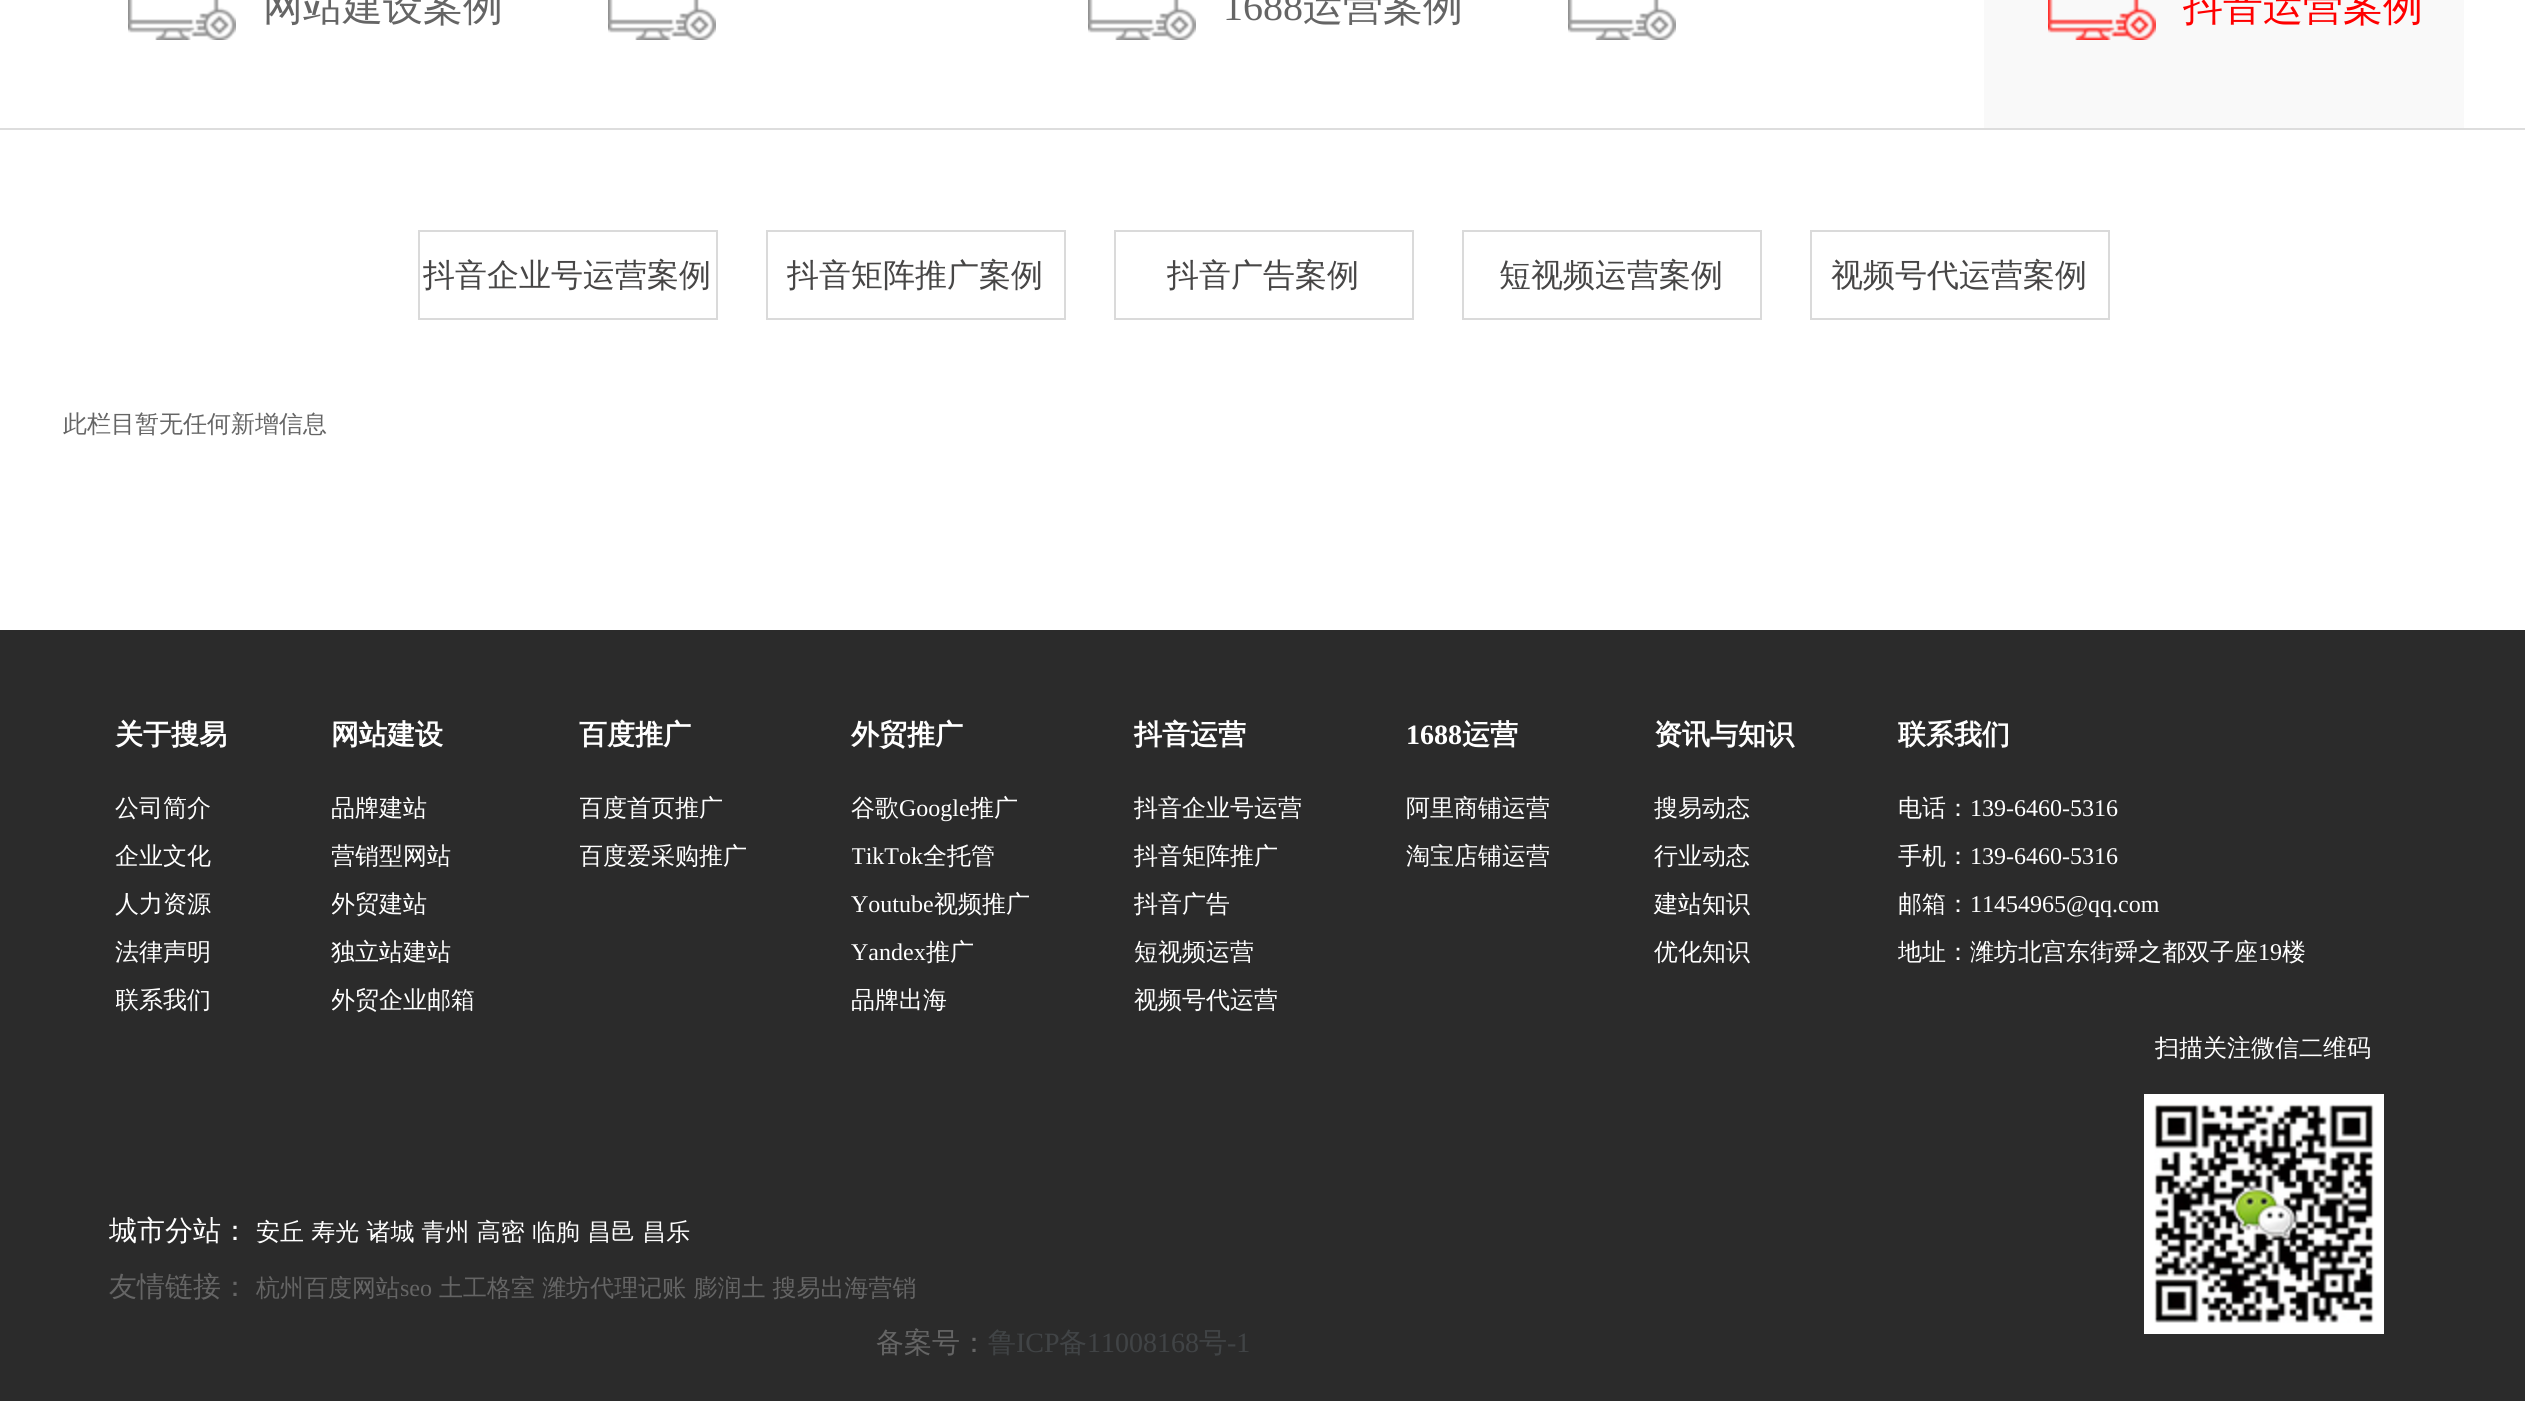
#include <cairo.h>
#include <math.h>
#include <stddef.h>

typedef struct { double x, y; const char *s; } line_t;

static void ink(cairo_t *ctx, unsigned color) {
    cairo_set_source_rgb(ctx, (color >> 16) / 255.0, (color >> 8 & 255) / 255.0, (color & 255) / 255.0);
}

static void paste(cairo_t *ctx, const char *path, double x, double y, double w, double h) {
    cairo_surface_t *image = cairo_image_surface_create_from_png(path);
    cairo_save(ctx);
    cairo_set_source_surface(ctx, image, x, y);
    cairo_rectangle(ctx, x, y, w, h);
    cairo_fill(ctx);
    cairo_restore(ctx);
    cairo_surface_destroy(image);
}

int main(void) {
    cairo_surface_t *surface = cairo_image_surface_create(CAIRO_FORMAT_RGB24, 2525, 1401);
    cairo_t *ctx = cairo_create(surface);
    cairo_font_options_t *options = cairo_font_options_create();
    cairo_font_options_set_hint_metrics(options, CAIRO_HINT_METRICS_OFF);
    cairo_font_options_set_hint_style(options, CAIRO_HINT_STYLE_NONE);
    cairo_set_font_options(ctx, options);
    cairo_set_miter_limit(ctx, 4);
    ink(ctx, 0xFFFFFF);
    cairo_paint(ctx);
    ink(ctx, 0xDDDDDD);
    cairo_rectangle(ctx, 0, 128, 2525, 2);
    cairo_fill(ctx);
    paste(ctx, "media/1.png", 128, 0, 108, 40);
    cairo_select_font_face(ctx, "WenQuanYi Zen Hei Medium", CAIRO_FONT_SLANT_NORMAL, CAIRO_FONT_WEIGHT_NORMAL);
    cairo_set_font_size(ctx, 40);
    ink(ctx, 0x656565);
    cairo_move_to(ctx, 263, 20);
    cairo_show_text(ctx, "网站建设案例");
    paste(ctx, "media/1.png", 608, 0, 108, 40);
    paste(ctx, "media/1.png", 1088, 0, 108, 40);
    cairo_select_font_face(ctx, "Liberation Serif", CAIRO_FONT_SLANT_NORMAL, CAIRO_FONT_WEIGHT_NORMAL);
    cairo_move_to(ctx, 1223, 20);
    cairo_show_text(ctx, "1688");
    cairo_select_font_face(ctx, "WenQuanYi Zen Hei Medium", CAIRO_FONT_SLANT_NORMAL, CAIRO_FONT_WEIGHT_NORMAL);
    cairo_move_to(ctx, 1303, 20);
    cairo_show_text(ctx, "运营案例");
    paste(ctx, "media/1.png", 1568, 0, 108, 40);
    ink(ctx, 0xF9F9F9);
    cairo_rectangle(ctx, 1984, 0, 480, 128);
    cairo_fill(ctx);
    paste(ctx, "media/2.png", 2048, 0, 108, 40);
    ink(ctx, 0xFF0000);
    cairo_move_to(ctx, 2183, 20);
    cairo_show_text(ctx, "抖音运营案例");
    cairo_rectangle(ctx, 419, 231, 298, 88);
    ink(ctx, 0xDADADA);
    cairo_stroke(ctx);
    cairo_set_font_size(ctx, 32);
    ink(ctx, 0x474646);
    cairo_move_to(ctx, 423, 286);
    cairo_show_text(ctx, "抖音企业号运营案例");
    cairo_rectangle(ctx, 767, 231, 298, 88);
    ink(ctx, 0xDADADA);
    cairo_stroke(ctx);
    ink(ctx, 0x474646);
    cairo_move_to(ctx, 787, 286);
    cairo_show_text(ctx, "抖音矩阵推广案例");
    cairo_rectangle(ctx, 1115, 231, 298, 88);
    ink(ctx, 0xDADADA);
    cairo_stroke(ctx);
    ink(ctx, 0x474646);
    cairo_move_to(ctx, 1167, 286);
    cairo_show_text(ctx, "抖音广告案例");
    cairo_rectangle(ctx, 1463, 231, 298, 88);
    ink(ctx, 0xDADADA);
    cairo_stroke(ctx);
    ink(ctx, 0x474646);
    cairo_move_to(ctx, 1499, 286);
    cairo_show_text(ctx, "短视频运营案例");
    cairo_rectangle(ctx, 1811, 231, 298, 88);
    ink(ctx, 0xDADADA);
    cairo_stroke(ctx);
    ink(ctx, 0x474646);
    cairo_move_to(ctx, 1831, 286);
    cairo_show_text(ctx, "视频号代运营案例");
    cairo_set_font_size(ctx, 24);
    ink(ctx, 0x656565);
    cairo_move_to(ctx, 63, 432);
    cairo_show_text(ctx, "此栏目暂无任何新增信息");
    ink(ctx, 0x2B2B2B);
    cairo_rectangle(ctx, 0, 630, 2525, 771);
    cairo_fill(ctx);
    cairo_select_font_face(ctx, "WenQuanYi Zen Hei", CAIRO_FONT_SLANT_NORMAL, CAIRO_FONT_WEIGHT_BOLD);
    cairo_set_font_size(ctx, 28);
    ink(ctx, 0xFFFFFF);
    cairo_move_to(ctx, 115, 744);
    cairo_show_text(ctx, "关于搜易");
    cairo_select_font_face(ctx, "WenQuanYi Zen Hei Medium", CAIRO_FONT_SLANT_NORMAL, CAIRO_FONT_WEIGHT_NORMAL);
    cairo_set_font_size(ctx, 24);
    {
        static const line_t items[] = {
            {115, 816, "公司简介"},
            {115, 864, "企业文化"},
            {115, 912, "人力资源"},
            {115, 960, "法律声明"},
        };
        for (size_t i = 0; i < sizeof items / sizeof *items; i++) {
            cairo_move_to(ctx, items[i].x, items[i].y);
            cairo_show_text(ctx, items[i].s);
        }
    }
    cairo_save(ctx);
    cairo_rectangle(ctx, 116, 976, 112, 48);
    cairo_clip(ctx);
    cairo_move_to(ctx, 115, 1008);
    cairo_show_text(ctx, "联系我们");
    cairo_restore(ctx);
    cairo_select_font_face(ctx, "WenQuanYi Zen Hei", CAIRO_FONT_SLANT_NORMAL, CAIRO_FONT_WEIGHT_BOLD);
    cairo_set_font_size(ctx, 28);
    cairo_move_to(ctx, 331, 744);
    cairo_show_text(ctx, "网站建设");
    cairo_select_font_face(ctx, "WenQuanYi Zen Hei Medium", CAIRO_FONT_SLANT_NORMAL, CAIRO_FONT_WEIGHT_NORMAL);
    cairo_set_font_size(ctx, 24);
    cairo_move_to(ctx, 331, 816);
    cairo_show_text(ctx, "品牌建站");
    cairo_save(ctx);
    cairo_rectangle(ctx, 332, 832, 144, 48);
    cairo_clip(ctx);
    cairo_move_to(ctx, 331, 864);
    cairo_show_text(ctx, "营销型网站");
    cairo_restore(ctx);
    cairo_save(ctx);
    cairo_rectangle(ctx, 332, 880, 144, 48);
    cairo_clip(ctx);
    cairo_move_to(ctx, 331, 912);
    cairo_show_text(ctx, "外贸建站");
    cairo_restore(ctx);
    cairo_move_to(ctx, 331, 960);
    cairo_show_text(ctx, "独立站建站");
    cairo_save(ctx);
    cairo_rectangle(ctx, 332, 976, 144, 48);
    cairo_clip(ctx);
    cairo_move_to(ctx, 331, 1008);
    cairo_show_text(ctx, "外贸企业邮箱");
    cairo_restore(ctx);
    cairo_select_font_face(ctx, "WenQuanYi Zen Hei", CAIRO_FONT_SLANT_NORMAL, CAIRO_FONT_WEIGHT_BOLD);
    cairo_set_font_size(ctx, 28);
    cairo_move_to(ctx, 579, 744);
    cairo_show_text(ctx, "百度推广");
    cairo_save(ctx);
    cairo_rectangle(ctx, 580, 784, 168, 48);
    cairo_clip(ctx);
    cairo_select_font_face(ctx, "WenQuanYi Zen Hei Medium", CAIRO_FONT_SLANT_NORMAL, CAIRO_FONT_WEIGHT_NORMAL);
    cairo_set_font_size(ctx, 24);
    cairo_move_to(ctx, 579, 816);
    cairo_show_text(ctx, "百度首页推广");
    cairo_restore(ctx);
    cairo_save(ctx);
    cairo_rectangle(ctx, 580, 832, 168, 48);
    cairo_clip(ctx);
    cairo_select_font_face(ctx, "WenQuanYi Zen Hei Medium", CAIRO_FONT_SLANT_NORMAL, CAIRO_FONT_WEIGHT_NORMAL);
    cairo_set_font_size(ctx, 24);
    cairo_move_to(ctx, 579, 864);
    cairo_show_text(ctx, "百度爱采购推广");
    cairo_restore(ctx);
    cairo_move_to(ctx, 851, 744);
    cairo_show_text(ctx, "外贸推广");
    cairo_select_font_face(ctx, "WenQuanYi Zen Hei Medium", CAIRO_FONT_SLANT_NORMAL, CAIRO_FONT_WEIGHT_NORMAL);
    cairo_set_font_size(ctx, 24);
    cairo_move_to(ctx, 851, 816);
    cairo_show_text(ctx, "谷歌");
    cairo_select_font_face(ctx, "Liberation Serif", CAIRO_FONT_SLANT_NORMAL, CAIRO_FONT_WEIGHT_NORMAL);
    cairo_move_to(ctx, 899, 816);
    cairo_show_text(ctx, "Google");
    cairo_select_font_face(ctx, "WenQuanYi Zen Hei Medium", CAIRO_FONT_SLANT_NORMAL, CAIRO_FONT_WEIGHT_NORMAL);
    cairo_move_to(ctx, 970, 816);
    cairo_show_text(ctx, "推广");
    cairo_save(ctx);
    cairo_rectangle(ctx, 852, 832, 178, 48);
    cairo_clip(ctx);
    cairo_select_font_face(ctx, "Liberation Serif", CAIRO_FONT_SLANT_NORMAL, CAIRO_FONT_WEIGHT_NORMAL);
    cairo_move_to(ctx, 851, 864);
    cairo_show_text(ctx, "TikTok");
    cairo_restore(ctx);
    cairo_move_to(ctx, 923, 864);
    cairo_show_text(ctx, "全托管");
    cairo_select_font_face(ctx, "Liberation Serif", CAIRO_FONT_SLANT_NORMAL, CAIRO_FONT_WEIGHT_NORMAL);
    cairo_move_to(ctx, 851, 912);
    cairo_show_text(ctx, "Youtube");
    cairo_select_font_face(ctx, "WenQuanYi Zen Hei Medium", CAIRO_FONT_SLANT_NORMAL, CAIRO_FONT_WEIGHT_NORMAL);
    cairo_move_to(ctx, 934, 912);
    cairo_show_text(ctx, "视频推广");
    cairo_select_font_face(ctx, "Liberation Serif", CAIRO_FONT_SLANT_NORMAL, CAIRO_FONT_WEIGHT_NORMAL);
    cairo_move_to(ctx, 851, 960);
    cairo_show_text(ctx, "Yandex");
    cairo_select_font_face(ctx, "WenQuanYi Zen Hei Medium", CAIRO_FONT_SLANT_NORMAL, CAIRO_FONT_WEIGHT_NORMAL);
    cairo_move_to(ctx, 926, 960);
    cairo_show_text(ctx, "推广");
    cairo_move_to(ctx, 851, 1008);
    cairo_show_text(ctx, "品牌出海");
    cairo_select_font_face(ctx, "WenQuanYi Zen Hei", CAIRO_FONT_SLANT_NORMAL, CAIRO_FONT_WEIGHT_BOLD);
    cairo_set_font_size(ctx, 28);
    cairo_move_to(ctx, 1134, 744);
    cairo_show_text(ctx, "抖音运营");
    cairo_save(ctx);
    cairo_rectangle(ctx, 1134, 784, 168, 48);
    cairo_clip(ctx);
    cairo_select_font_face(ctx, "WenQuanYi Zen Hei Medium", CAIRO_FONT_SLANT_NORMAL, CAIRO_FONT_WEIGHT_NORMAL);
    cairo_set_font_size(ctx, 24);
    cairo_move_to(ctx, 1134, 816);
    cairo_show_text(ctx, "抖音企业号运营");
    cairo_restore(ctx);
    cairo_save(ctx);
    cairo_rectangle(ctx, 1134, 832, 168, 48);
    cairo_clip(ctx);
    cairo_select_font_face(ctx, "WenQuanYi Zen Hei Medium", CAIRO_FONT_SLANT_NORMAL, CAIRO_FONT_WEIGHT_NORMAL);
    cairo_set_font_size(ctx, 24);
    cairo_move_to(ctx, 1134, 864);
    cairo_show_text(ctx, "抖音矩阵推广");
    cairo_restore(ctx);
    cairo_save(ctx);
    cairo_rectangle(ctx, 1134, 880, 168, 48);
    cairo_clip(ctx);
    cairo_select_font_face(ctx, "WenQuanYi Zen Hei Medium", CAIRO_FONT_SLANT_NORMAL, CAIRO_FONT_WEIGHT_NORMAL);
    cairo_set_font_size(ctx, 24);
    cairo_move_to(ctx, 1134, 912);
    cairo_show_text(ctx, "抖音广告");
    cairo_restore(ctx);
    cairo_select_font_face(ctx, "WenQuanYi Zen Hei Medium", CAIRO_FONT_SLANT_NORMAL, CAIRO_FONT_WEIGHT_NORMAL);
    cairo_set_font_size(ctx, 24);
    cairo_move_to(ctx, 1134, 960);
    cairo_show_text(ctx, "短视频运营");
    cairo_move_to(ctx, 1134, 1008);
    cairo_show_text(ctx, "视频号代运营");
    cairo_select_font_face(ctx, "Liberation Serif", CAIRO_FONT_SLANT_NORMAL, CAIRO_FONT_WEIGHT_BOLD);
    cairo_set_font_size(ctx, 28);
    cairo_move_to(ctx, 1406, 744);
    cairo_show_text(ctx, "1688");
    cairo_select_font_face(ctx, "WenQuanYi Zen Hei", CAIRO_FONT_SLANT_NORMAL, CAIRO_FONT_WEIGHT_BOLD);
    cairo_move_to(ctx, 1462, 744);
    cairo_show_text(ctx, "运营");
    cairo_select_font_face(ctx, "WenQuanYi Zen Hei Medium", CAIRO_FONT_SLANT_NORMAL, CAIRO_FONT_WEIGHT_NORMAL);
    cairo_set_font_size(ctx, 24);
    cairo_move_to(ctx, 1406, 816);
    cairo_show_text(ctx, "阿里商铺运营");
    cairo_move_to(ctx, 1406, 864);
    cairo_show_text(ctx, "淘宝店铺运营");
    cairo_select_font_face(ctx, "WenQuanYi Zen Hei", CAIRO_FONT_SLANT_NORMAL, CAIRO_FONT_WEIGHT_BOLD);
    cairo_set_font_size(ctx, 28);
    cairo_move_to(ctx, 1654, 744);
    cairo_show_text(ctx, "资讯与知识");
    cairo_select_font_face(ctx, "WenQuanYi Zen Hei Medium", CAIRO_FONT_SLANT_NORMAL, CAIRO_FONT_WEIGHT_NORMAL);
    cairo_set_font_size(ctx, 24);
    {
        static const line_t items[] = {
            {1654, 816, "搜易动态"},
            {1654, 864, "行业动态"},
            {1654, 912, "建站知识"},
            {1654, 960, "优化知识"},
        };
        for (size_t i = 0; i < sizeof items / sizeof *items; i++) {
            cairo_move_to(ctx, items[i].x, items[i].y);
            cairo_show_text(ctx, items[i].s);
        }
    }
    cairo_select_font_face(ctx, "WenQuanYi Zen Hei", CAIRO_FONT_SLANT_NORMAL, CAIRO_FONT_WEIGHT_BOLD);
    cairo_set_font_size(ctx, 28);
    cairo_move_to(ctx, 1898, 744);
    cairo_show_text(ctx, "联系我们");
    cairo_select_font_face(ctx, "WenQuanYi Zen Hei Medium", CAIRO_FONT_SLANT_NORMAL, CAIRO_FONT_WEIGHT_NORMAL);
    cairo_set_font_size(ctx, 24);
    cairo_move_to(ctx, 1898, 816);
    cairo_show_text(ctx, "电话：");
    cairo_select_font_face(ctx, "Liberation Serif", CAIRO_FONT_SLANT_NORMAL, CAIRO_FONT_WEIGHT_NORMAL);
    cairo_move_to(ctx, 1970, 816);
    cairo_show_text(ctx, "139-6460-5316");
    cairo_select_font_face(ctx, "WenQuanYi Zen Hei Medium", CAIRO_FONT_SLANT_NORMAL, CAIRO_FONT_WEIGHT_NORMAL);
    cairo_move_to(ctx, 1898, 864);
    cairo_show_text(ctx, "手机：");
    cairo_select_font_face(ctx, "Liberation Serif", CAIRO_FONT_SLANT_NORMAL, CAIRO_FONT_WEIGHT_NORMAL);
    cairo_move_to(ctx, 1970, 864);
    cairo_show_text(ctx, "139-6460-5316");
    cairo_select_font_face(ctx, "WenQuanYi Zen Hei Medium", CAIRO_FONT_SLANT_NORMAL, CAIRO_FONT_WEIGHT_NORMAL);
    cairo_move_to(ctx, 1898, 912);
    cairo_show_text(ctx, "邮箱：");
    cairo_select_font_face(ctx, "Liberation Serif", CAIRO_FONT_SLANT_NORMAL, CAIRO_FONT_WEIGHT_NORMAL);
    cairo_move_to(ctx, 1970, 912);
    cairo_show_text(ctx, "11454965@qq.com");
    cairo_select_font_face(ctx, "WenQuanYi Zen Hei Medium", CAIRO_FONT_SLANT_NORMAL, CAIRO_FONT_WEIGHT_NORMAL);
    cairo_move_to(ctx, 1898, 960);
    cairo_show_text(ctx, "地址：潍坊北宫东街舜之都双子座");
    cairo_select_font_face(ctx, "Liberation Serif", CAIRO_FONT_SLANT_NORMAL, CAIRO_FONT_WEIGHT_NORMAL);
    cairo_move_to(ctx, 2258, 960);
    cairo_show_text(ctx, "19");
    cairo_select_font_face(ctx, "WenQuanYi Zen Hei Medium", CAIRO_FONT_SLANT_NORMAL, CAIRO_FONT_WEIGHT_NORMAL);
    cairo_move_to(ctx, 2282, 960);
    cairo_show_text(ctx, "楼");
    cairo_move_to(ctx, 2155, 1056);
    cairo_show_text(ctx, "扫描关注微信二维码");
    cairo_rectangle(ctx, 2144, 1094, 240, 240);
    cairo_fill(ctx);
    paste(ctx, "media/3.png", 2154, 1104, 220, 219);
    cairo_set_font_size(ctx, 28);
    cairo_move_to(ctx, 109, 1240);
    cairo_show_text(ctx, "城市分站：");
    cairo_set_font_size(ctx, 24);
    cairo_move_to(ctx, 256, 1240);
    cairo_show_text(ctx, "安丘 寿光 诸城 青州 高密 临朐 昌邑 昌乐");
    cairo_set_font_size(ctx, 28);
    ink(ctx, 0x656565);
    cairo_move_to(ctx, 109, 1296);
    cairo_show_text(ctx, "友情链接：");
    cairo_set_font_size(ctx, 24);
    cairo_move_to(ctx, 256, 1296);
    cairo_show_text(ctx, "杭州百度网站");
    cairo_select_font_face(ctx, "Liberation Serif", CAIRO_FONT_SLANT_NORMAL, CAIRO_FONT_WEIGHT_NORMAL);
    cairo_move_to(ctx, 400, 1296);
    cairo_show_text(ctx, "seo");
    cairo_select_font_face(ctx, "WenQuanYi Zen Hei Medium", CAIRO_FONT_SLANT_NORMAL, CAIRO_FONT_WEIGHT_NORMAL);
    cairo_move_to(ctx, 439, 1296);
    cairo_show_text(ctx, "土工格室 潍坊代理记账 膨润土 搜易出海营销");
    cairo_set_font_size(ctx, 28);
    cairo_move_to(ctx, 876, 1352);
    cairo_show_text(ctx, "备案号：");
    ink(ctx, 0x414446);
    cairo_move_to(ctx, 988, 1352);
    cairo_show_text(ctx, "鲁");
    cairo_select_font_face(ctx, "Liberation Serif", CAIRO_FONT_SLANT_NORMAL, CAIRO_FONT_WEIGHT_NORMAL);
    cairo_move_to(ctx, 1016, 1352);
    cairo_show_text(ctx, "ICP");
    cairo_select_font_face(ctx, "WenQuanYi Zen Hei Medium", CAIRO_FONT_SLANT_NORMAL, CAIRO_FONT_WEIGHT_NORMAL);
    cairo_move_to(ctx, 1059, 1352);
    cairo_show_text(ctx, "备");
    cairo_select_font_face(ctx, "Liberation Serif", CAIRO_FONT_SLANT_NORMAL, CAIRO_FONT_WEIGHT_NORMAL);
    cairo_move_to(ctx, 1087, 1352);
    cairo_show_text(ctx, "11008168");
    cairo_select_font_face(ctx, "WenQuanYi Zen Hei Medium", CAIRO_FONT_SLANT_NORMAL, CAIRO_FONT_WEIGHT_NORMAL);
    cairo_move_to(ctx, 1199, 1352);
    cairo_show_text(ctx, "号");
    cairo_select_font_face(ctx, "Liberation Serif", CAIRO_FONT_SLANT_NORMAL, CAIRO_FONT_WEIGHT_NORMAL);
    cairo_move_to(ctx, 1227, 1352);
    cairo_show_text(ctx, "-1");
    cairo_surface_write_to_png(surface, "image.png");
    cairo_font_options_destroy(options);
    cairo_destroy(ctx);
    cairo_surface_destroy(surface);
    return 0;
}
